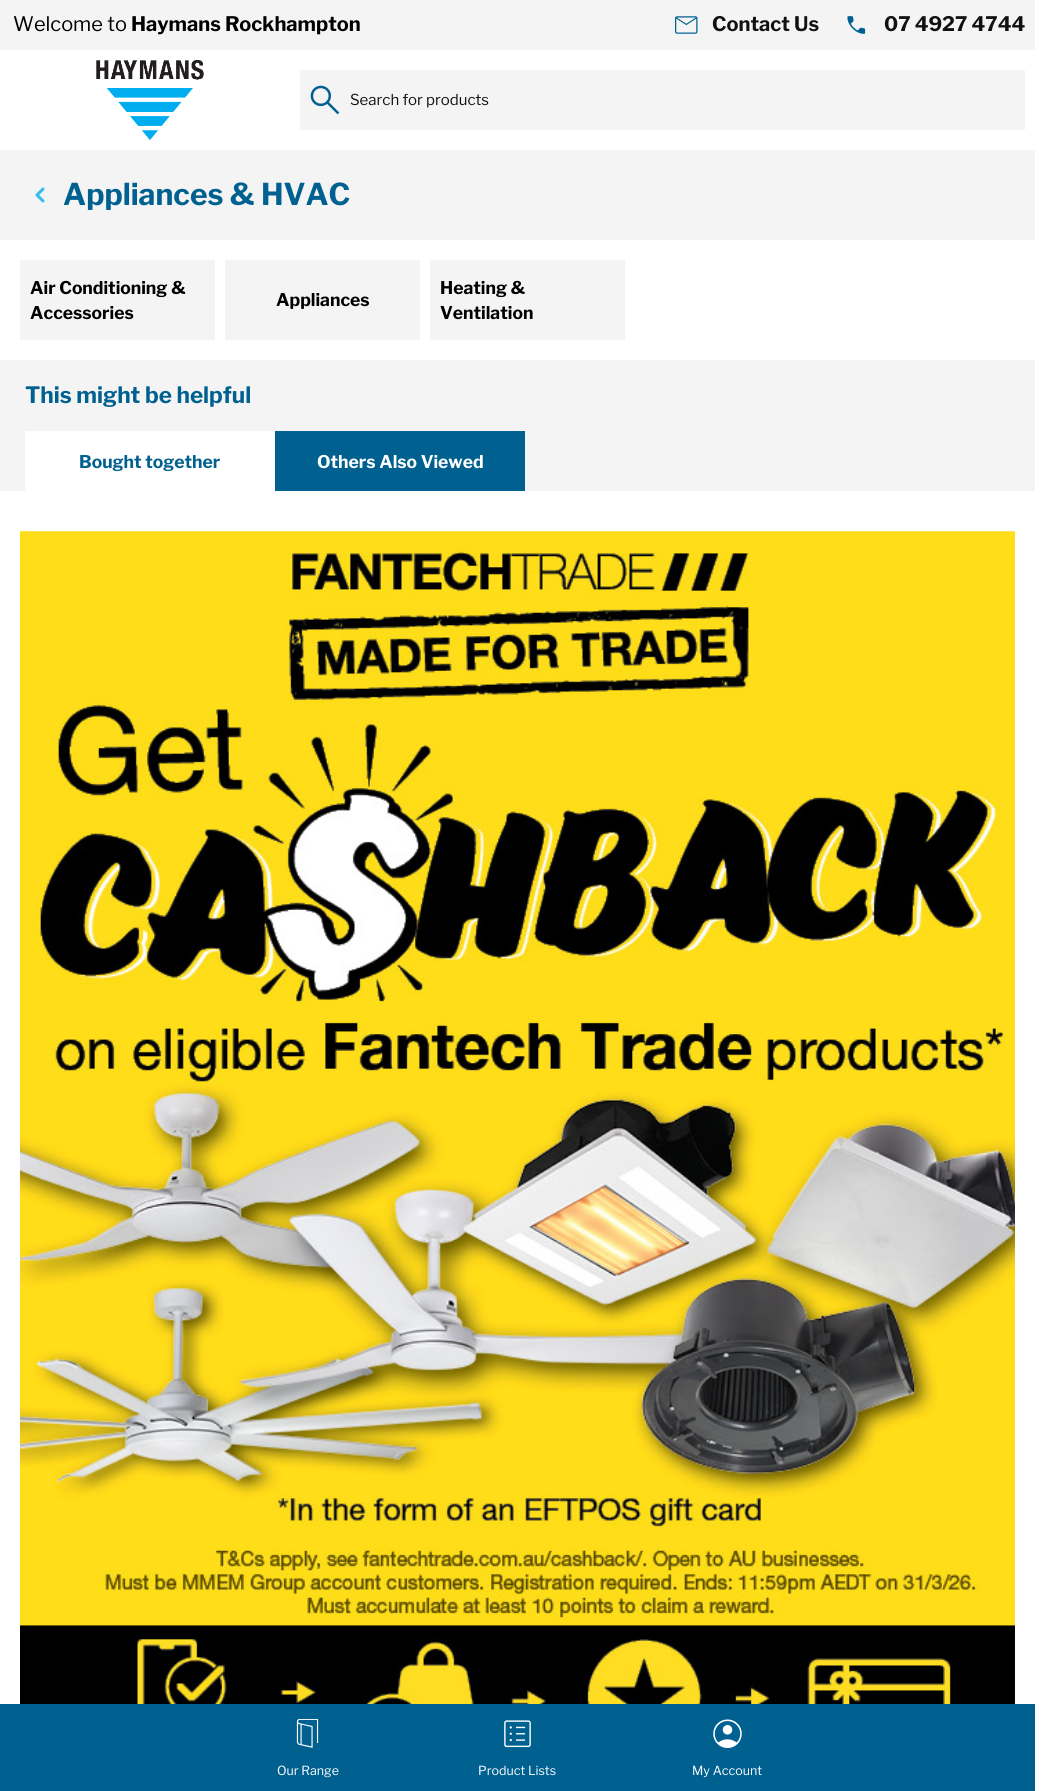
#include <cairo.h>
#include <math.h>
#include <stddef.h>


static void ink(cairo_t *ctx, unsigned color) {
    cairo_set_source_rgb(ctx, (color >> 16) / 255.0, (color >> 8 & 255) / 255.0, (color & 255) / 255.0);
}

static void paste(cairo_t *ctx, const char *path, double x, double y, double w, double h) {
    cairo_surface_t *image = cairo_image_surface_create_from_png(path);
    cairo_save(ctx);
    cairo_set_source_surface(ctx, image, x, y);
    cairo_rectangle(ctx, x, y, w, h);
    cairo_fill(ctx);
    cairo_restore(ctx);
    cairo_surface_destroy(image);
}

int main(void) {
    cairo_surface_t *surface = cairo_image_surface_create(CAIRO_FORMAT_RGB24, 1053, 1791);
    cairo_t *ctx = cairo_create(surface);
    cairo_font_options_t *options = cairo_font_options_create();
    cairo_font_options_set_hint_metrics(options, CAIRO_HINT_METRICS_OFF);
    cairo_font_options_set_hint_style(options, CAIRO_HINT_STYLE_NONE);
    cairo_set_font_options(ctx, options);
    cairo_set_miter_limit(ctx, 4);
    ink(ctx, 0xFFFFFF);
    cairo_paint(ctx);
    ink(ctx, 0xF4F4F4);
    cairo_rectangle(ctx, 0, 0, 1035, 50);
    cairo_fill(ctx);
    cairo_select_font_face(ctx, "Libre Franklin", CAIRO_FONT_SLANT_NORMAL, CAIRO_FONT_WEIGHT_NORMAL);
    cairo_set_font_size(ctx, 20);
    ink(ctx, 0x000000);
    cairo_move_to(ctx, 13, 31);
    cairo_show_text(ctx, "Welcome to");
    cairo_select_font_face(ctx, "Libre Franklin", CAIRO_FONT_SLANT_NORMAL, CAIRO_FONT_WEIGHT_BOLD);
    cairo_move_to(ctx, 131, 31);
    cairo_show_text(ctx, "Haymans Rockhampton");
    paste(ctx, "media/1.png", 675, 16, 23, 18);
    ink(ctx, 0x111111);
    cairo_move_to(ctx, 712, 31);
    cairo_show_text(ctx, "Contact Us");
    paste(ctx, "media/2.png", 847, 16, 19, 18);
    cairo_move_to(ctx, 884, 31);
    cairo_show_text(ctx, "07 4927 4744");
    ink(ctx, 0xF4F4F4);
    cairo_rectangle(ctx, 300, 70, 725, 60);
    cairo_fill(ctx);
    paste(ctx, "media/3.png", 310, 85, 30, 30);
    cairo_select_font_face(ctx, "Libre Franklin", CAIRO_FONT_SLANT_NORMAL, CAIRO_FONT_WEIGHT_NORMAL);
    cairo_set_font_size(ctx, 15);
    ink(ctx, 0x111111);
    cairo_move_to(ctx, 350, 105);
    cairo_show_text(ctx, "Search for products");
    paste(ctx, "media/4.png", 96, 60, 108, 80);
    ink(ctx, 0x006090);
    cairo_rectangle(ctx, 0, 1704, 1035, 87);
    cairo_fill(ctx);
    paste(ctx, "media/5.png", 296, 1719, 23, 29);
    cairo_set_font_size(ctx, 12.5);
    ink(ctx, 0xFFFFFF);
    cairo_move_to(ctx, 277, 1775);
    cairo_show_text(ctx, "Our Range");
    paste(ctx, "media/6.png", 504, 1720, 27, 28);
    cairo_move_to(ctx, 478, 1775);
    cairo_show_text(ctx, "Product Lists");
    paste(ctx, "media/7.png", 713, 1719, 29, 29);
    cairo_move_to(ctx, 692, 1775);
    cairo_show_text(ctx, "My Account");
    ink(ctx, 0xF4F4F4);
    cairo_rectangle(ctx, 0, 150, 1035, 90);
    cairo_fill(ctx);
    paste(ctx, "media/8.png", 35, 187, 10, 16);
    cairo_select_font_face(ctx, "Libre Franklin", CAIRO_FONT_SLANT_NORMAL, CAIRO_FONT_WEIGHT_BOLD);
    cairo_set_font_size(ctx, 30);
    ink(ctx, 0x006090);
    cairo_move_to(ctx, 63, 205);
    cairo_show_text(ctx, "Appliances & HVAC");
    ink(ctx, 0xF4F4F4);
    cairo_rectangle(ctx, 20, 260, 195, 80);
    cairo_fill(ctx);
    cairo_set_font_size(ctx, 17.5);
    ink(ctx, 0x000000);
    cairo_move_to(ctx, 30, 294);
    cairo_show_text(ctx, "Air Conditioning &");
    cairo_move_to(ctx, 30, 319);
    cairo_show_text(ctx, "Accessories");
    ink(ctx, 0xF4F4F4);
    cairo_rectangle(ctx, 225, 260, 195, 80);
    cairo_fill(ctx);
    ink(ctx, 0x000000);
    cairo_move_to(ctx, 276, 306);
    cairo_show_text(ctx, "Appliances");
    ink(ctx, 0xF4F4F4);
    cairo_rectangle(ctx, 430, 260, 195, 80);
    cairo_fill(ctx);
    ink(ctx, 0x000000);
    cairo_move_to(ctx, 440, 294);
    cairo_show_text(ctx, "Heating &");
    cairo_move_to(ctx, 440, 319);
    cairo_show_text(ctx, "Ventilation");
    ink(ctx, 0xF4F4F4);
    cairo_rectangle(ctx, 0, 360, 1035, 131);
    cairo_fill(ctx);
    cairo_set_font_size(ctx, 22.5);
    ink(ctx, 0x006090);
    cairo_move_to(ctx, 25, 403);
    cairo_show_text(ctx, "This might be helpful");
    ink(ctx, 0xFFFFFF);
    cairo_rectangle(ctx, 25, 431, 250, 60);
    cairo_fill(ctx);
    cairo_set_font_size(ctx, 17.5);
    ink(ctx, 0x006090);
    cairo_move_to(ctx, 79, 468);
    cairo_show_text(ctx, "Bought together");
    cairo_rectangle(ctx, 275, 431, 250, 60);
    cairo_fill(ctx);
    ink(ctx, 0xFFFFFF);
    cairo_move_to(ctx, 317, 468);
    cairo_show_text(ctx, "Others Also Viewed");
    paste(ctx, "media/9.png", 20, 531, 995, 1173);
    cairo_surface_write_to_png(surface, "image.png");
    cairo_font_options_destroy(options);
    cairo_destroy(ctx);
    cairo_surface_destroy(surface);
    return 0;
}
